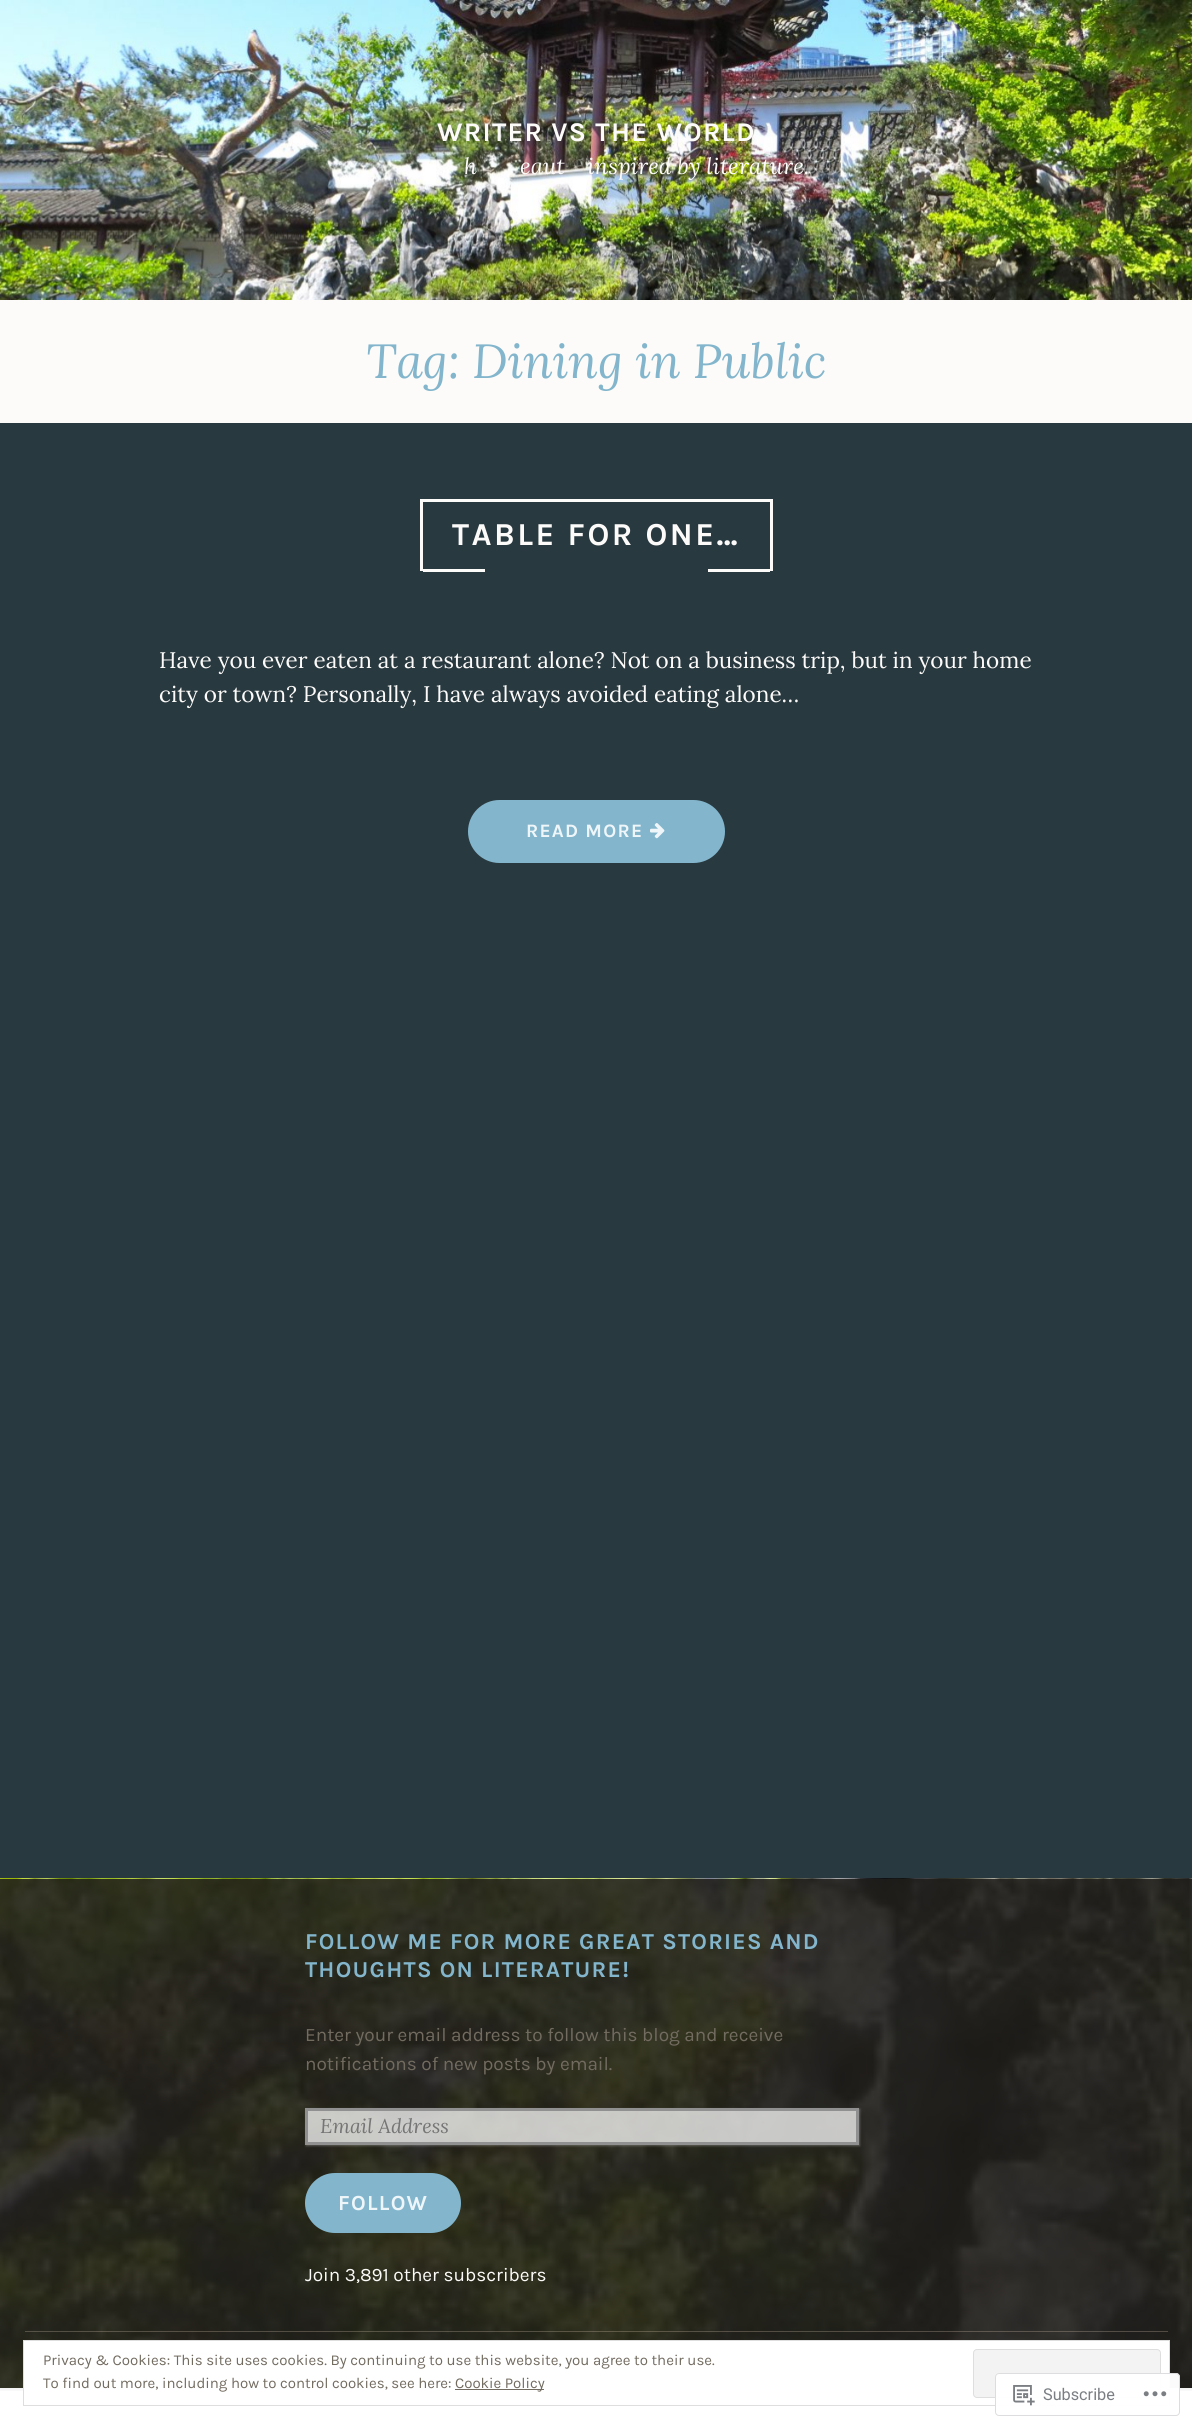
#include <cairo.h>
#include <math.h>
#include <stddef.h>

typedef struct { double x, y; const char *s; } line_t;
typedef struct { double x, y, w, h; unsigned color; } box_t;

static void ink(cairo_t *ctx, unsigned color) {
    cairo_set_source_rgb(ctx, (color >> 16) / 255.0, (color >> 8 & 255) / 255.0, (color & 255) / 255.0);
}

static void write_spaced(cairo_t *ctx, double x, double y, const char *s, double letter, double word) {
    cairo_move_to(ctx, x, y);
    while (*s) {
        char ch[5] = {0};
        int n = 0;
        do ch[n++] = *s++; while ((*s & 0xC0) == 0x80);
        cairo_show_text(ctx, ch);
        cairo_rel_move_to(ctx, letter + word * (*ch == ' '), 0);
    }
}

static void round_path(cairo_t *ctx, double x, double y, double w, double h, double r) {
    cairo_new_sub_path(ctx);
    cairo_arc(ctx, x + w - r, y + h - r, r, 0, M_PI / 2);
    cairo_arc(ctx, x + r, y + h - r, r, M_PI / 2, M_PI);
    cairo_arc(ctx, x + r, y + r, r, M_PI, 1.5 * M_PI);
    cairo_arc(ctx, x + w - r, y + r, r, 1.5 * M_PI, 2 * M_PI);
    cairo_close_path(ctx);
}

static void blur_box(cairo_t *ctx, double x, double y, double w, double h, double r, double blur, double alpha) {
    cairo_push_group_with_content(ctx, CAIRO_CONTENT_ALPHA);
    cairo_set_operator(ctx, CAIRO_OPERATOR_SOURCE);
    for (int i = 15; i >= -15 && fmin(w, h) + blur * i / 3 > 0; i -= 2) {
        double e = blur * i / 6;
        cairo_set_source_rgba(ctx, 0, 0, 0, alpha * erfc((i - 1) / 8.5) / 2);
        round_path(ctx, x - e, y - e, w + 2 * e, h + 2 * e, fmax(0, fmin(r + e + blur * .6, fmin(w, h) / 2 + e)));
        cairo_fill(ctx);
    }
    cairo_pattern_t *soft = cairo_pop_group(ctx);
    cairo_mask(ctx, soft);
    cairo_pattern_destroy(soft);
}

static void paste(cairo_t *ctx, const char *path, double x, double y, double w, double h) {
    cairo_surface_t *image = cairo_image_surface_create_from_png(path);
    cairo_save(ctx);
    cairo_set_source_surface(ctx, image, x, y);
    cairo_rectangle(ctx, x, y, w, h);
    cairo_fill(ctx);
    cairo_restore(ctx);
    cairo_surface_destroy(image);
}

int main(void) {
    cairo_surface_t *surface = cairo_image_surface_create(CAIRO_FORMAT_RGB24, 1192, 2428);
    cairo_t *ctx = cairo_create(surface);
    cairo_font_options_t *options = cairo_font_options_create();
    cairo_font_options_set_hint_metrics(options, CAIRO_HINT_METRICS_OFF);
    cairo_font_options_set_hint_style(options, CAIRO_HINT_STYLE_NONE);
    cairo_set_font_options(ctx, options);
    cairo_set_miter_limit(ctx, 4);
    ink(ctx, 0xFFFFFF);
    cairo_paint(ctx);
    cairo_save(ctx);
    cairo_rectangle(ctx, 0, 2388, 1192, 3);
    cairo_clip(ctx);
    ink(ctx, 0x000000);
    blur_box(ctx, 0, 0, 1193, 2388, 0, 4, 0.1);
    cairo_restore(ctx);
    cairo_set_source_rgba(ctx, 0.988, 0.984, 0.976, 0.9);
    cairo_rectangle(ctx, 0, 300, 1192, 123);
    cairo_fill(ctx);
    paste(ctx, "media/1.png", 0, 0, 1192, 300);
    cairo_select_font_face(ctx, "Karla", CAIRO_FONT_SLANT_NORMAL, CAIRO_FONT_WEIGHT_BOLD);
    cairo_set_font_size(ctx, 27);
    ink(ctx, 0xFCFBF9);
    write_spaced(ctx, 437, 141, "WRITER VS THE WORLD", 1.25, 0);
    cairo_select_font_face(ctx, "Lora", CAIRO_FONT_SLANT_ITALIC, CAIRO_FONT_WEIGHT_NORMAL);
    cairo_set_font_size(ctx, 22.5);
    {
        static const line_t items[] = {
            {464, 174, "h"},
            {520, 174, "eaut"},
            {587, 174, "inspired by literature."},
        };
        for (size_t i = 0; i < sizeof items / sizeof *items; i++) {
            cairo_move_to(ctx, items[i].x, items[i].y);
            cairo_show_text(ctx, items[i].s);
        }
    }
    cairo_set_font_size(ctx, 48);
    ink(ctx, 0x83B6CC);
    cairo_move_to(ctx, 366, 378);
    cairo_show_text(ctx, "Tag: Dining in Public");
    {
        static const box_t items[] = {
            {0, 423, 1192, 1455, 0x293940},
            {420, 499, 353, 3, 0xFCFBF9},
            {770, 499, 3, 72, 0xFCFBF9},
            {420, 499, 3, 72, 0xFCFBF9},
        };
        for (size_t i = 0; i < sizeof items / sizeof *items; i++) {
            ink(ctx, items[i].color);
            cairo_rectangle(ctx, items[i].x, items[i].y, items[i].w, items[i].h);
            cairo_fill(ctx);
        }
    }
    cairo_select_font_face(ctx, "Karla", CAIRO_FONT_SLANT_NORMAL, CAIRO_FONT_WEIGHT_BOLD);
    cairo_set_font_size(ctx, 32);
    write_spaced(ctx, 452, 545, "TABLE FOR ONE…", 2.5, 0);
    cairo_rectangle(ctx, 423, 569, 62, 3);
    cairo_fill(ctx);
    cairo_rectangle(ctx, 708, 569, 62, 3);
    cairo_fill(ctx);
    cairo_select_font_face(ctx, "Lora", CAIRO_FONT_SLANT_NORMAL, CAIRO_FONT_WEIGHT_NORMAL);
    cairo_set_font_size(ctx, 22.5);
    cairo_move_to(ctx, 159, 668);
    cairo_show_text(ctx, "Have you ever eaten at a restaurant alone? Not on a business trip, but in your home");
    cairo_move_to(ctx, 159, 702);
    cairo_show_text(ctx, "city or town? Personally, I have always avoided eating alone…");
    ink(ctx, 0x83B6CC);
    round_path(ctx, 468, 800, 257, 63, 31.5);
    cairo_fill(ctx);
    cairo_select_font_face(ctx, "Karla", CAIRO_FONT_SLANT_NORMAL, CAIRO_FONT_WEIGHT_BOLD);
    cairo_set_font_size(ctx, 19);
    ink(ctx, 0xEFF6F9);
    write_spaced(ctx, 526, 837, "READ MORE", 1.25, 0);
    paste(ctx, "media/2.png", 650, 823, 15, 16);
    paste(ctx, "media/3.png", 0, 1878, 1192, 510);
    cairo_set_source_rgba(ctx, 0.914, 0.835, 0.753, 0.25);
    cairo_rectangle(ctx, 25, 2331, 1143, 1);
    cairo_fill(ctx);
    cairo_set_font_size(ctx, 22.8);
    ink(ctx, 0x83B6CC);
    write_spaced(ctx, 305, 1949, "FOLLOW ME FOR MORE GREAT STORIES AND", 1.25, 0);
    write_spaced(ctx, 305, 1977, "THOUGHTS ON LITERATURE!", 1.25, 0);
    cairo_select_font_face(ctx, "Karla", CAIRO_FONT_SLANT_NORMAL, CAIRO_FONT_WEIGHT_NORMAL);
    cairo_set_font_size(ctx, 19);
    ink(ctx, 0x726B60);
    cairo_move_to(ctx, 305, 2041);
    cairo_show_text(ctx, "Enter your email address to follow this blog and receive");
    cairo_move_to(ctx, 305, 2070);
    cairo_show_text(ctx, "notifications of new posts by email.");
    cairo_save(ctx);
    cairo_set_fill_rule(ctx, CAIRO_FILL_RULE_EVEN_ODD);
    cairo_new_path(ctx);
    cairo_move_to(ctx, 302, 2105);
    cairo_line_to(ctx, 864, 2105);
    cairo_line_to(ctx, 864, 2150);
    cairo_line_to(ctx, 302, 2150);
    cairo_close_path(ctx);
    cairo_move_to(ctx, 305, 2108);
    cairo_line_to(ctx, 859, 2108);
    cairo_line_to(ctx, 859, 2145);
    cairo_line_to(ctx, 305, 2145);
    cairo_close_path(ctx);
    cairo_clip(ctx);
    ink(ctx, 0xFFFFFF);
    blur_box(ctx, 306, 2109, 554, 37, 0, 1, 0.25);
    cairo_restore(ctx);
    cairo_set_source_rgba(ctx, 1, 1, 1, 0.75);
    cairo_rectangle(ctx, 306.5, 2109.5, 551, 34);
    cairo_fill_preserve(ctx);
    ink(ctx, 0x909090);
    cairo_set_line_width(ctx, 3);
    cairo_stroke(ctx);
    cairo_select_font_face(ctx, "Lora", CAIRO_FONT_SLANT_ITALIC, CAIRO_FONT_WEIGHT_NORMAL);
    cairo_set_font_size(ctx, 20);
    ink(ctx, 0x757575);
    cairo_move_to(ctx, 320, 2133);
    cairo_show_text(ctx, "Email Address");
    ink(ctx, 0x83B6CC);
    round_path(ctx, 305, 2173, 156, 60, 30);
    cairo_fill(ctx);
    cairo_select_font_face(ctx, "Karla", CAIRO_FONT_SLANT_NORMAL, CAIRO_FONT_WEIGHT_BOLD);
    cairo_set_font_size(ctx, 21.5);
    ink(ctx, 0xEFF6F9);
    write_spaced(ctx, 338, 2210, "FOLLOW", 1.25, 0);
    cairo_select_font_face(ctx, "Karla", CAIRO_FONT_SLANT_NORMAL, CAIRO_FONT_WEIGHT_NORMAL);
    cairo_set_font_size(ctx, 19);
    ink(ctx, 0xFCFBF9);
    cairo_move_to(ctx, 305, 2281);
    cairo_show_text(ctx, "Join 3,891 other subscribers");
    ink(ctx, 0xFFFFFF);
    cairo_rectangle(ctx, 24, 2341, 1145, 52);
    cairo_fill(ctx);
    cairo_rectangle(ctx, 23.5, 2340.5, 1146, 65);
    ink(ctx, 0xDEDEDE);
    cairo_set_line_width(ctx, 1);
    cairo_stroke(ctx);
    cairo_set_font_size(ctx, 15);
    ink(ctx, 0x726B60);
    cairo_move_to(ctx, 43, 2365);
    cairo_show_text(ctx, "Privacy & Cookies: This site uses cookies. By continuing to use this website, you agree to their use.");
    ink(ctx, 0xF3F3F3);
    round_path(ctx, 973.5, 2349.5, 187, 48, 3.5);
    cairo_fill_preserve(ctx);
    ink(ctx, 0xDEDEDE);
    cairo_stroke(ctx);
    ink(ctx, 0x726B60);
    cairo_move_to(ctx, 43, 2388);
    cairo_show_text(ctx, "To find out more, including how to control cookies, see here:");
    cairo_rectangle(ctx, 455, 2389, 89, 1);
    cairo_fill(ctx);
    cairo_move_to(ctx, 455, 2388);
    cairo_show_text(ctx, "Cookie Policy");
    cairo_set_source_rgba(ctx, 1, 1, 1, 0.98);
    round_path(ctx, 995, 2373, 185, 43, 4);
    cairo_fill(ctx);
    round_path(ctx, 995.5, 2373.5, 184, 42, 3.5);
    cairo_set_source_rgba(ctx, 0.863, 0.863, 0.871, 0.98);
    cairo_stroke(ctx);
    paste(ctx, "media/4.png", 1013, 2385, 22, 21);
    cairo_select_font_face(ctx, "Roboto", CAIRO_FONT_SLANT_NORMAL, CAIRO_FONT_WEIGHT_NORMAL);
    cairo_set_font_size(ctx, 16.25);
    ink(ctx, 0x7B7F84);
    cairo_move_to(ctx, 1043, 2400);
    cairo_show_text(ctx, "Subscribe");
    paste(ctx, "media/5.png", 1143, 2391, 24, 6);
    cairo_surface_write_to_png(surface, "image.png");
    cairo_font_options_destroy(options);
    cairo_destroy(ctx);
    cairo_surface_destroy(surface);
    return 0;
}
